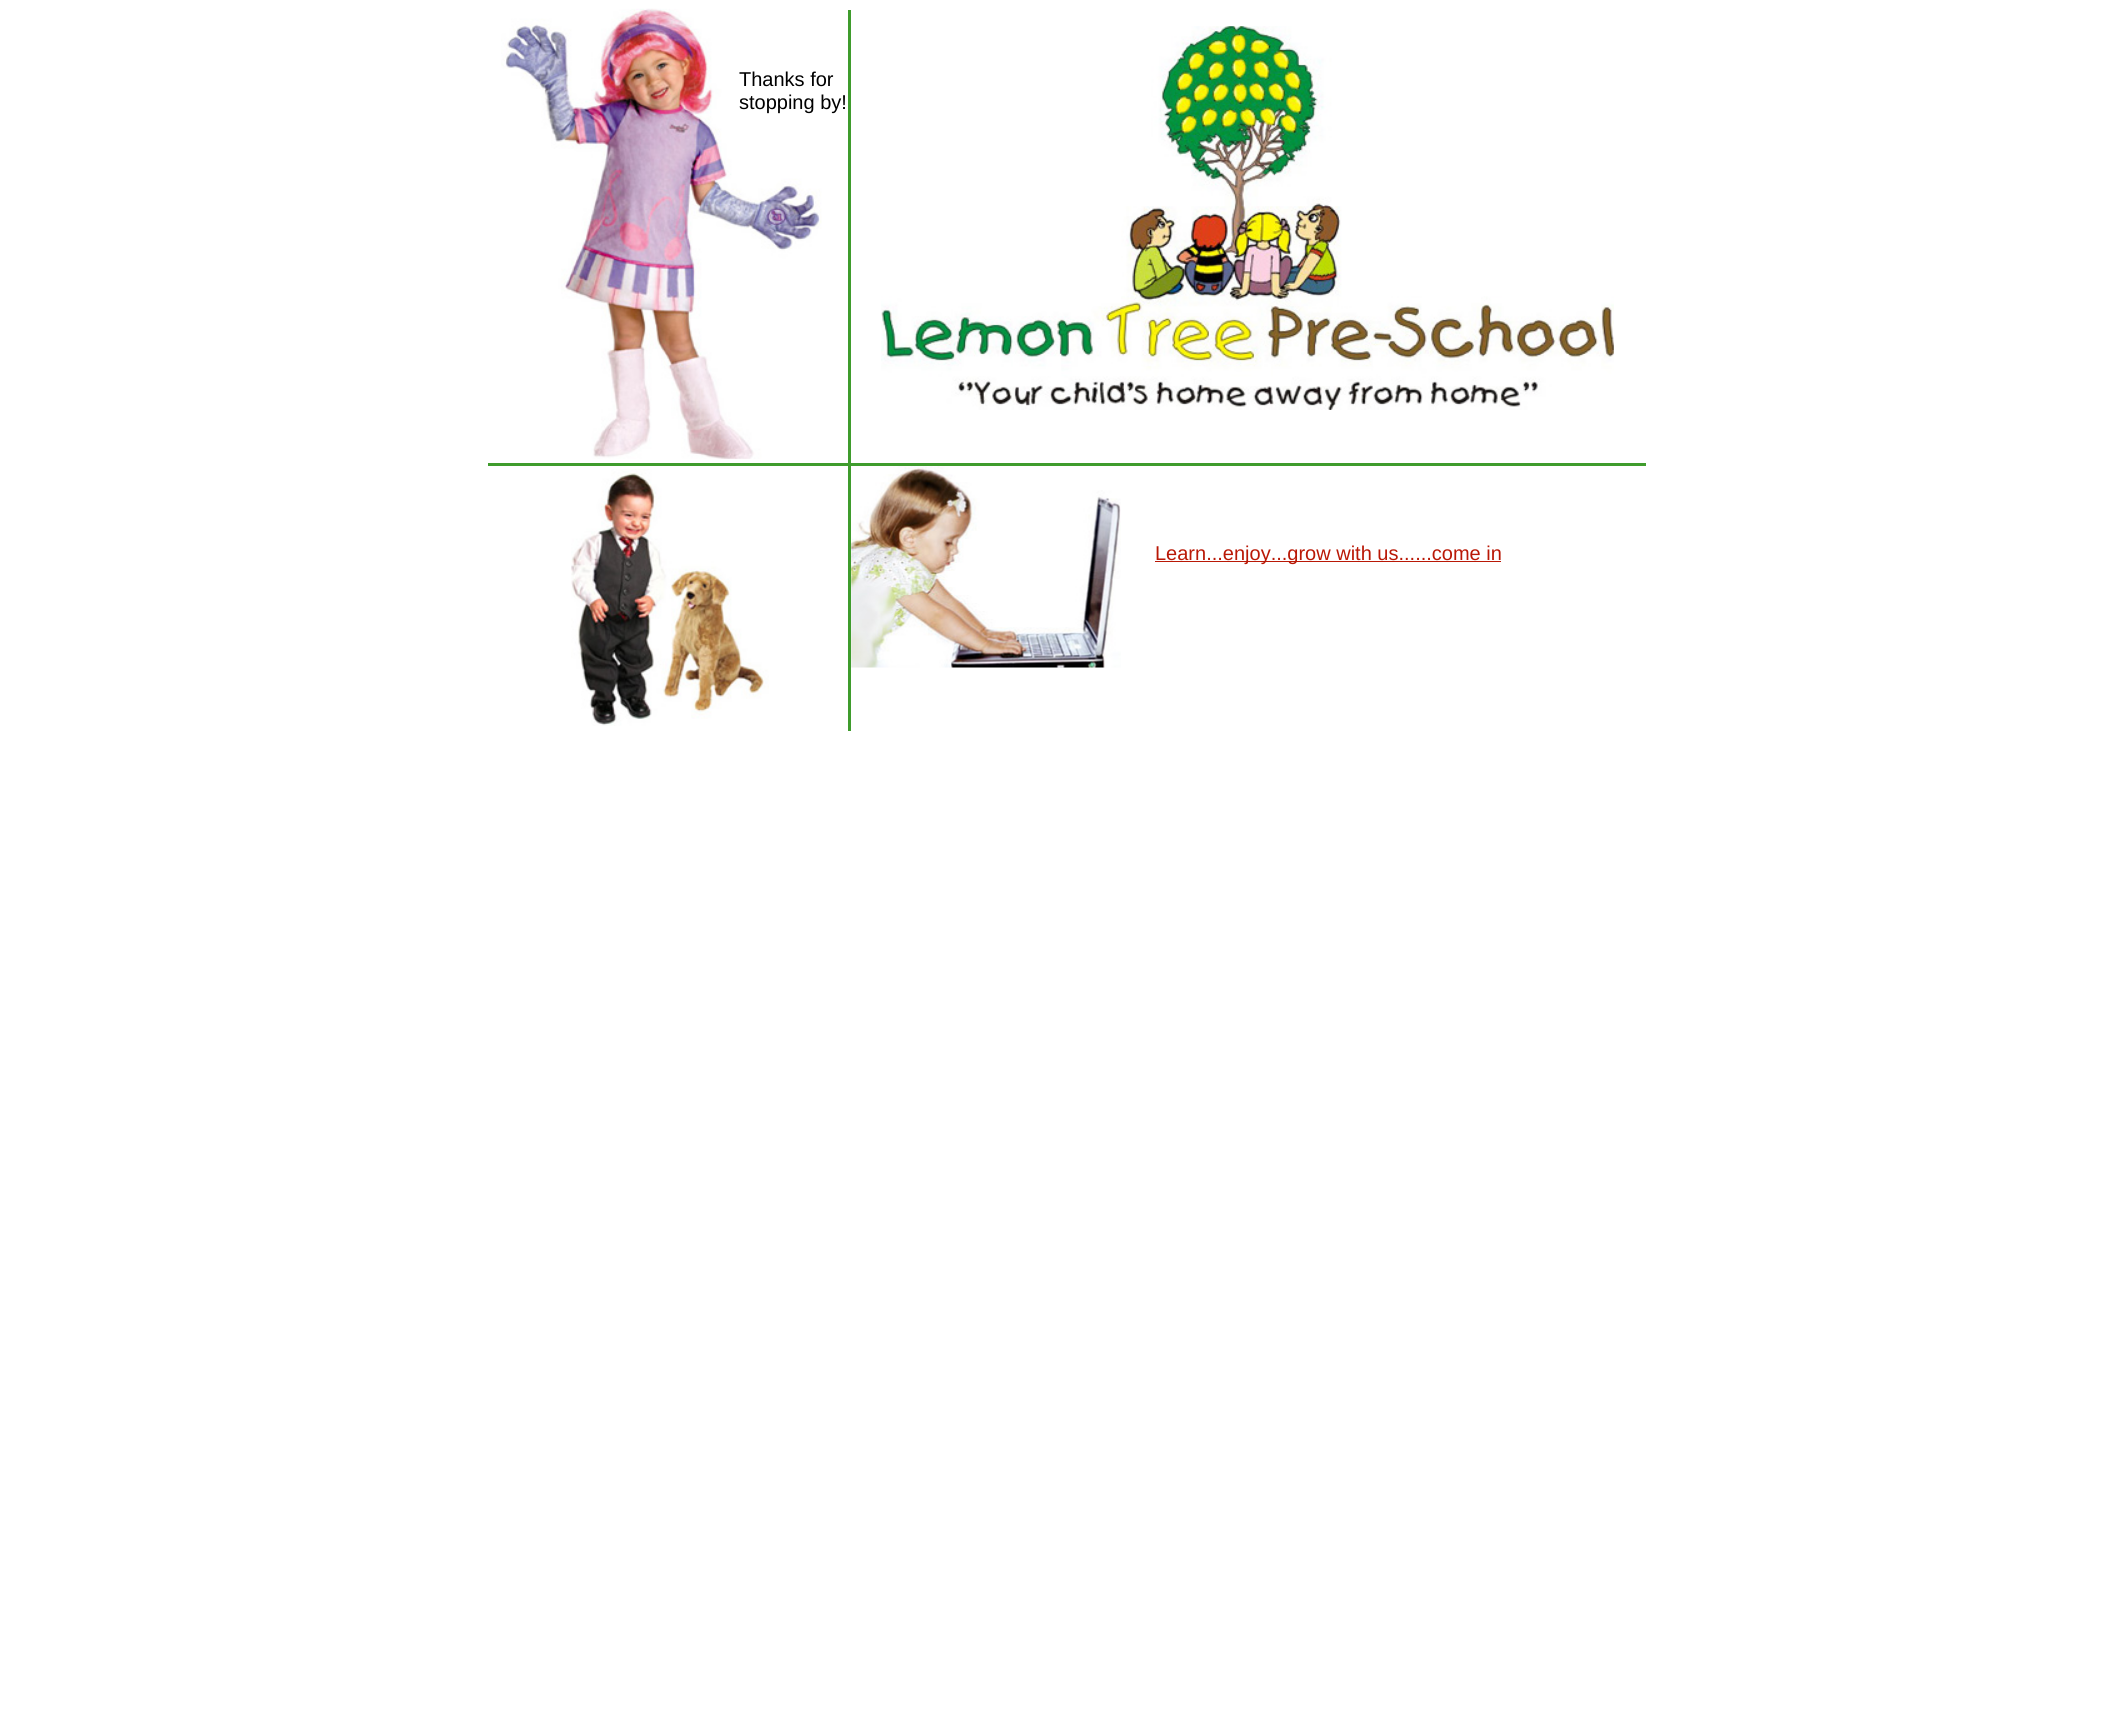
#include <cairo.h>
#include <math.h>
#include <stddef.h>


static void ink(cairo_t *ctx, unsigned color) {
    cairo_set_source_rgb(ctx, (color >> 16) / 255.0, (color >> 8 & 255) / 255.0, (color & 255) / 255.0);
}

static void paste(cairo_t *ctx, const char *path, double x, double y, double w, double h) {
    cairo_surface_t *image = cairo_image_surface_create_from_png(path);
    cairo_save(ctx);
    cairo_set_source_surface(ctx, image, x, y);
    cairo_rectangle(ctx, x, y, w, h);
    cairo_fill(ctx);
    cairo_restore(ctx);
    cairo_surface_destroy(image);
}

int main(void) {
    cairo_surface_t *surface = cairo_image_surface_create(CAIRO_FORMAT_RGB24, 2123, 1715);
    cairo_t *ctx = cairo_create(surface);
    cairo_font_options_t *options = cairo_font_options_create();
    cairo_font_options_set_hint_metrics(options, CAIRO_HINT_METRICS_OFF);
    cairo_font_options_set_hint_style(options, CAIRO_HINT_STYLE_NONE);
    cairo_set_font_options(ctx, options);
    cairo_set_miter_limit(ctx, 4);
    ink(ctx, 0xFFFFFF);
    cairo_paint(ctx);
    paste(ctx, "media/1.png", 501, 8, 321, 451);
    ink(ctx, 0x3F9C2D);
    cairo_rectangle(ctx, 848, 10, 3, 721);
    cairo_fill(ctx);
    paste(ctx, "media/2.png", 881, 26, 733, 384);
    cairo_select_font_face(ctx, "Liberation Sans", CAIRO_FONT_SLANT_NORMAL, CAIRO_FONT_WEIGHT_NORMAL);
    cairo_set_font_size(ctx, 20);
    ink(ctx, 0x000000);
    cairo_move_to(ctx, 739, 86);
    cairo_show_text(ctx, "Thanks for");
    cairo_move_to(ctx, 739, 109);
    cairo_show_text(ctx, "stopping by!");
    ink(ctx, 0x3F9C2D);
    cairo_rectangle(ctx, 488, 463, 1158, 3);
    cairo_fill(ctx);
    paste(ctx, "media/3.png", 571, 469, 198, 257);
    paste(ctx, "media/4.png", 851, 466, 270, 202);
    ink(ctx, 0xB91806);
    cairo_rectangle(ctx, 1155, 561, 346, 1);
    cairo_fill(ctx);
    cairo_move_to(ctx, 1155, 560);
    cairo_show_text(ctx, "Learn...enjoy...grow with us......come in");
    cairo_surface_write_to_png(surface, "image.png");
    cairo_font_options_destroy(options);
    cairo_destroy(ctx);
    cairo_surface_destroy(surface);
    return 0;
}
